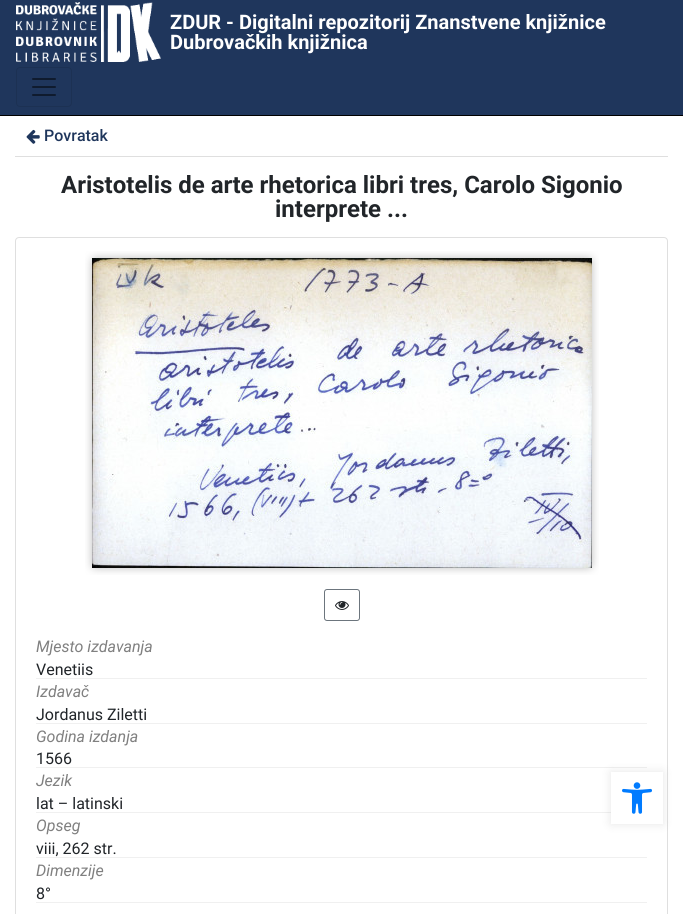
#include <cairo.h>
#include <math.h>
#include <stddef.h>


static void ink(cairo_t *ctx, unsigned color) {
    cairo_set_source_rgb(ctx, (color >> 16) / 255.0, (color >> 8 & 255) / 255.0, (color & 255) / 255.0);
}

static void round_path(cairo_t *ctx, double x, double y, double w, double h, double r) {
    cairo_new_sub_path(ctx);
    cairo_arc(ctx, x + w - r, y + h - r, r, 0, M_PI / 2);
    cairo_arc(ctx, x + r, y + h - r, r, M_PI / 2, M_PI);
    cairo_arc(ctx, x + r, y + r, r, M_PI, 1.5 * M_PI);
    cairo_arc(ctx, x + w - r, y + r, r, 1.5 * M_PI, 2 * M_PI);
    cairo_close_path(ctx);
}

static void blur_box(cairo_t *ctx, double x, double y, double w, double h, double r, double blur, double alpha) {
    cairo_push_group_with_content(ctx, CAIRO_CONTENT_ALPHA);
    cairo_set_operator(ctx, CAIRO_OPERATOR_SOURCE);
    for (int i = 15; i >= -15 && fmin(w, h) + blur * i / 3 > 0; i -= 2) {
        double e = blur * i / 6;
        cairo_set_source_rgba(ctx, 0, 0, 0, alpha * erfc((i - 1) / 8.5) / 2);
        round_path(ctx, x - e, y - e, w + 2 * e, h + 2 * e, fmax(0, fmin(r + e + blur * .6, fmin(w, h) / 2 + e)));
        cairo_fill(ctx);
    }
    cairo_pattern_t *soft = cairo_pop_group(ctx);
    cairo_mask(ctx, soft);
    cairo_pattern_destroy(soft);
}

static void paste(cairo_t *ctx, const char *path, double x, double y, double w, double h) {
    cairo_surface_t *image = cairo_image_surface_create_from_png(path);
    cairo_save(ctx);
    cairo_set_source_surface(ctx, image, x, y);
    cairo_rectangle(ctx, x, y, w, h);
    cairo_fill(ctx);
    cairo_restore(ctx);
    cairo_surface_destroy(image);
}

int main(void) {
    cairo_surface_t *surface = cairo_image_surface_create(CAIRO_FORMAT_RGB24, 683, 914);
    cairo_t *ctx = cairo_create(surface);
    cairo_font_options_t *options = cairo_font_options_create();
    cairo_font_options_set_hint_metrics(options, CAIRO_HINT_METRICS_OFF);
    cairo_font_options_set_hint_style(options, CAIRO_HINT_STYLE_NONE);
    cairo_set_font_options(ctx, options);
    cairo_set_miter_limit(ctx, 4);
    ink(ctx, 0xFFFFFF);
    cairo_paint(ctx);
    ink(ctx, 0x1F365C);
    cairo_rectangle(ctx, 0, 0, 683, 115);
    cairo_fill(ctx);
    ink(ctx, 0x000000);
    cairo_rectangle(ctx, 0, 115, 683, 1);
    cairo_fill(ctx);
    paste(ctx, "media/1.png", 16, 2, 145, 60);
    cairo_select_font_face(ctx, "Roboto", CAIRO_FONT_SLANT_NORMAL, CAIRO_FONT_WEIGHT_BOLD);
    cairo_set_font_size(ctx, 20);
    ink(ctx, 0xFFFFFF);
    cairo_move_to(ctx, 170, 29);
    cairo_show_text(ctx, "ZDUR - Digitalni repozitorij Znanstvene knjižnice");
    cairo_move_to(ctx, 170, 49);
    cairo_show_text(ctx, "Dubrovačkih knjižnica");
    round_path(ctx, 16.5, 67.5, 55, 39, 3.5);
    ink(ctx, 0x1C3153);
    cairo_set_line_width(ctx, 1);
    cairo_stroke(ctx);
    paste(ctx, "media/2.png", 32, 78, 24, 18);
    ink(ctx, 0xDFDFDF);
    cairo_rectangle(ctx, 15, 156, 653, 1);
    cairo_fill(ctx);
    paste(ctx, "media/3.png", 26, 129, 14, 15);
    cairo_select_font_face(ctx, "Roboto Medium", CAIRO_FONT_SLANT_NORMAL, CAIRO_FONT_WEIGHT_NORMAL);
    cairo_set_font_size(ctx, 16);
    ink(ctx, 0x1F365C);
    cairo_move_to(ctx, 44, 141);
    cairo_show_text(ctx, "Povratak");
    cairo_select_font_face(ctx, "Roboto", CAIRO_FONT_SLANT_NORMAL, CAIRO_FONT_WEIGHT_BOLD);
    cairo_set_font_size(ctx, 24);
    ink(ctx, 0x212529);
    cairo_move_to(ctx, 61, 193);
    cairo_show_text(ctx, "Aristotelis de arte rhetorica libri tres, Carolo Sigonio");
    cairo_move_to(ctx, 275, 217);
    cairo_show_text(ctx, "interprete ...");
    round_path(ctx, 15.5, 237.5, 652, 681, 3.5);
    ink(ctx, 0xDFDFDF);
    cairo_stroke(ctx);
    paste(ctx, "media/4.png", 85, 251, 514, 324);
    round_path(ctx, 324.5, 589.5, 35, 31, 2.5);
    ink(ctx, 0x6C757D);
    cairo_stroke(ctx);
    paste(ctx, "media/5.png", 335, 601, 14, 9);
    cairo_select_font_face(ctx, "Roboto", CAIRO_FONT_SLANT_ITALIC, CAIRO_FONT_WEIGHT_NORMAL);
    cairo_set_font_size(ctx, 16);
    ink(ctx, 0x808080);
    cairo_move_to(ctx, 36, 652);
    cairo_show_text(ctx, "Mjesto izdavanja");
    cairo_select_font_face(ctx, "Roboto", CAIRO_FONT_SLANT_NORMAL, CAIRO_FONT_WEIGHT_NORMAL);
    ink(ctx, 0x212529);
    cairo_move_to(ctx, 36, 675);
    cairo_show_text(ctx, "Venetiis");
    ink(ctx, 0xF0F0F0);
    cairo_rectangle(ctx, 36, 678, 611, 1);
    cairo_fill(ctx);
    cairo_select_font_face(ctx, "Roboto", CAIRO_FONT_SLANT_ITALIC, CAIRO_FONT_WEIGHT_NORMAL);
    ink(ctx, 0x808080);
    cairo_move_to(ctx, 36, 697);
    cairo_show_text(ctx, "Izdavač");
    cairo_select_font_face(ctx, "Roboto", CAIRO_FONT_SLANT_NORMAL, CAIRO_FONT_WEIGHT_NORMAL);
    ink(ctx, 0x212529);
    cairo_move_to(ctx, 36, 720);
    cairo_show_text(ctx, "Jordanus Ziletti");
    ink(ctx, 0xF0F0F0);
    cairo_rectangle(ctx, 36, 723, 611, 1);
    cairo_fill(ctx);
    cairo_select_font_face(ctx, "Roboto", CAIRO_FONT_SLANT_ITALIC, CAIRO_FONT_WEIGHT_NORMAL);
    ink(ctx, 0x808080);
    cairo_move_to(ctx, 36, 742);
    cairo_show_text(ctx, "Godina izdanja");
    cairo_select_font_face(ctx, "Roboto", CAIRO_FONT_SLANT_NORMAL, CAIRO_FONT_WEIGHT_NORMAL);
    ink(ctx, 0x212529);
    cairo_move_to(ctx, 36, 764);
    cairo_show_text(ctx, "1566");
    ink(ctx, 0xF0F0F0);
    cairo_rectangle(ctx, 36, 767, 611, 1);
    cairo_fill(ctx);
    cairo_select_font_face(ctx, "Roboto", CAIRO_FONT_SLANT_ITALIC, CAIRO_FONT_WEIGHT_NORMAL);
    ink(ctx, 0x808080);
    cairo_move_to(ctx, 36, 786);
    cairo_show_text(ctx, "Jezik");
    cairo_select_font_face(ctx, "Roboto", CAIRO_FONT_SLANT_NORMAL, CAIRO_FONT_WEIGHT_NORMAL);
    ink(ctx, 0x212529);
    cairo_move_to(ctx, 36, 809);
    cairo_show_text(ctx, "lat – latinski");
    ink(ctx, 0xF0F0F0);
    cairo_rectangle(ctx, 36, 812, 575, 1);
    cairo_fill(ctx);
    cairo_select_font_face(ctx, "Roboto", CAIRO_FONT_SLANT_ITALIC, CAIRO_FONT_WEIGHT_NORMAL);
    ink(ctx, 0x808080);
    cairo_move_to(ctx, 36, 831);
    cairo_show_text(ctx, "Opseg");
    cairo_select_font_face(ctx, "Roboto", CAIRO_FONT_SLANT_NORMAL, CAIRO_FONT_WEIGHT_NORMAL);
    ink(ctx, 0x212529);
    cairo_move_to(ctx, 36, 854);
    cairo_show_text(ctx, "viii, 262 str.");
    ink(ctx, 0xF0F0F0);
    cairo_rectangle(ctx, 36, 857, 611, 1);
    cairo_fill(ctx);
    cairo_select_font_face(ctx, "Roboto", CAIRO_FONT_SLANT_ITALIC, CAIRO_FONT_WEIGHT_NORMAL);
    ink(ctx, 0x808080);
    cairo_move_to(ctx, 36, 876);
    cairo_show_text(ctx, "Dimenzije");
    cairo_select_font_face(ctx, "Roboto", CAIRO_FONT_SLANT_NORMAL, CAIRO_FONT_WEIGHT_NORMAL);
    ink(ctx, 0x212529);
    cairo_move_to(ctx, 36, 899);
    cairo_show_text(ctx, "8°");
    ink(ctx, 0xF0F0F0);
    cairo_rectangle(ctx, 36, 902, 611, 1);
    cairo_fill(ctx);
    ink(ctx, 0x000000);
    blur_box(ctx, 611, 772, 52, 52, 0, 5, 0.1);
    ink(ctx, 0xFFFFFF);
    cairo_rectangle(ctx, 611, 772, 52, 52);
    cairo_fill(ctx);
    paste(ctx, "media/6.png", 622, 782, 30, 32);
    cairo_surface_write_to_png(surface, "image.png");
    cairo_font_options_destroy(options);
    cairo_destroy(ctx);
    cairo_surface_destroy(surface);
    return 0;
}
